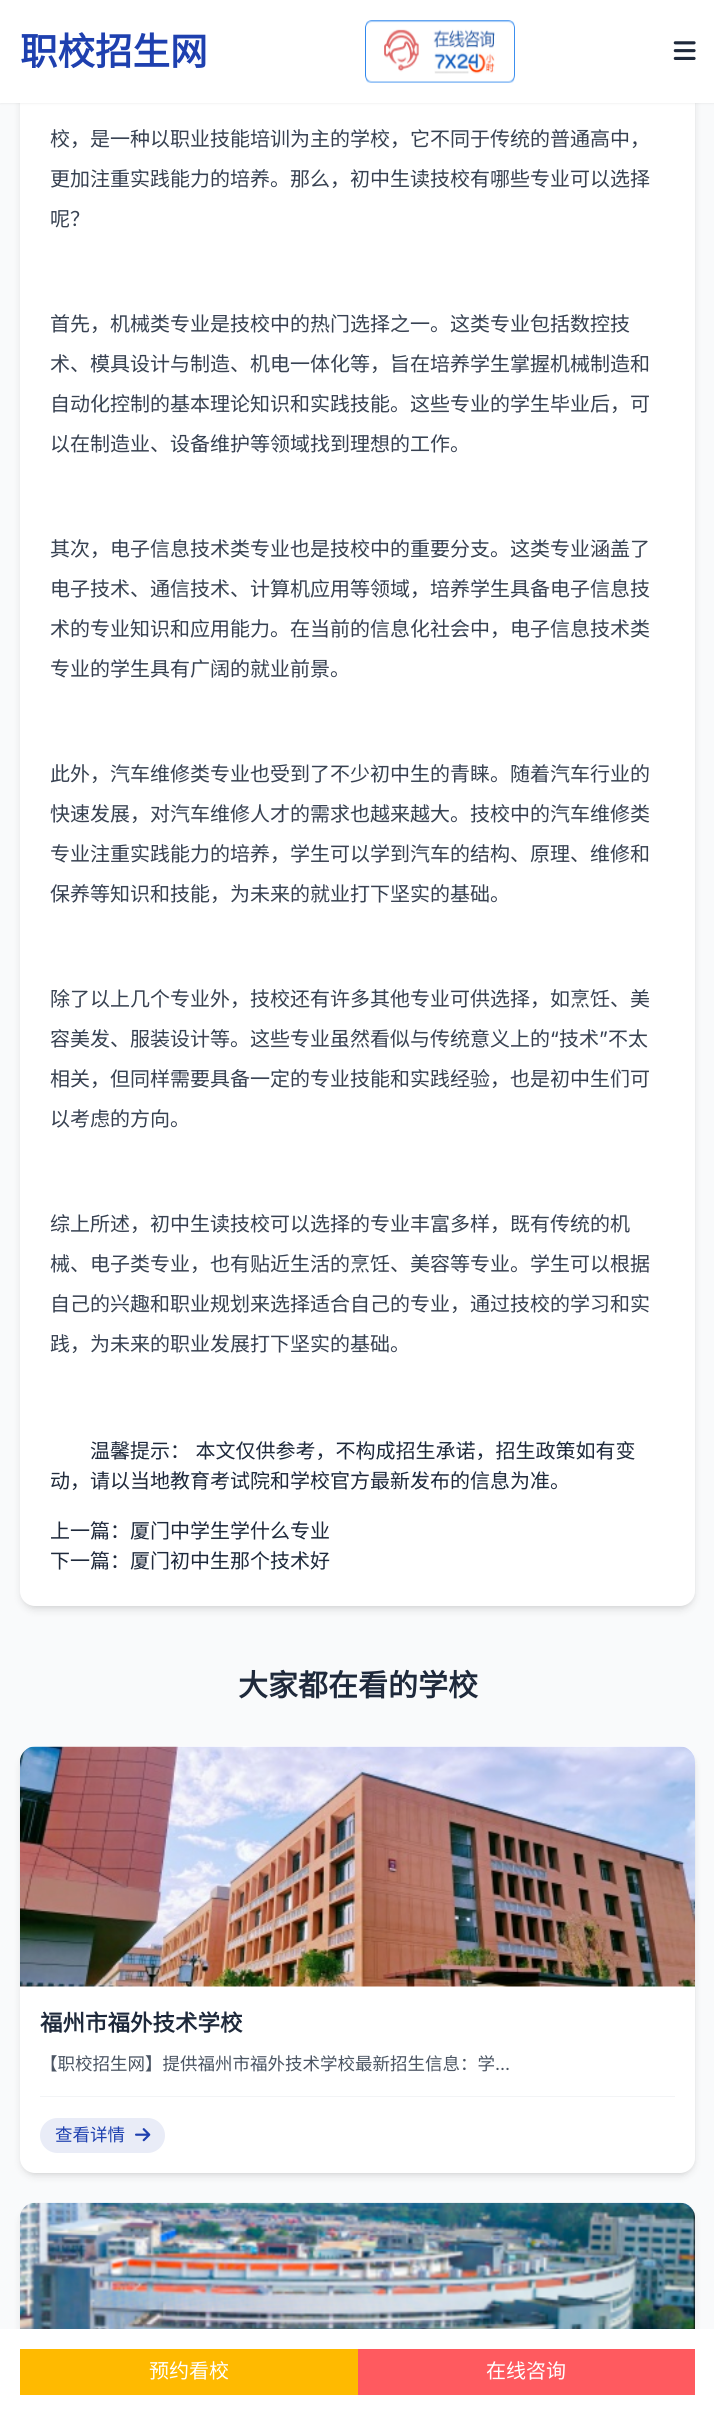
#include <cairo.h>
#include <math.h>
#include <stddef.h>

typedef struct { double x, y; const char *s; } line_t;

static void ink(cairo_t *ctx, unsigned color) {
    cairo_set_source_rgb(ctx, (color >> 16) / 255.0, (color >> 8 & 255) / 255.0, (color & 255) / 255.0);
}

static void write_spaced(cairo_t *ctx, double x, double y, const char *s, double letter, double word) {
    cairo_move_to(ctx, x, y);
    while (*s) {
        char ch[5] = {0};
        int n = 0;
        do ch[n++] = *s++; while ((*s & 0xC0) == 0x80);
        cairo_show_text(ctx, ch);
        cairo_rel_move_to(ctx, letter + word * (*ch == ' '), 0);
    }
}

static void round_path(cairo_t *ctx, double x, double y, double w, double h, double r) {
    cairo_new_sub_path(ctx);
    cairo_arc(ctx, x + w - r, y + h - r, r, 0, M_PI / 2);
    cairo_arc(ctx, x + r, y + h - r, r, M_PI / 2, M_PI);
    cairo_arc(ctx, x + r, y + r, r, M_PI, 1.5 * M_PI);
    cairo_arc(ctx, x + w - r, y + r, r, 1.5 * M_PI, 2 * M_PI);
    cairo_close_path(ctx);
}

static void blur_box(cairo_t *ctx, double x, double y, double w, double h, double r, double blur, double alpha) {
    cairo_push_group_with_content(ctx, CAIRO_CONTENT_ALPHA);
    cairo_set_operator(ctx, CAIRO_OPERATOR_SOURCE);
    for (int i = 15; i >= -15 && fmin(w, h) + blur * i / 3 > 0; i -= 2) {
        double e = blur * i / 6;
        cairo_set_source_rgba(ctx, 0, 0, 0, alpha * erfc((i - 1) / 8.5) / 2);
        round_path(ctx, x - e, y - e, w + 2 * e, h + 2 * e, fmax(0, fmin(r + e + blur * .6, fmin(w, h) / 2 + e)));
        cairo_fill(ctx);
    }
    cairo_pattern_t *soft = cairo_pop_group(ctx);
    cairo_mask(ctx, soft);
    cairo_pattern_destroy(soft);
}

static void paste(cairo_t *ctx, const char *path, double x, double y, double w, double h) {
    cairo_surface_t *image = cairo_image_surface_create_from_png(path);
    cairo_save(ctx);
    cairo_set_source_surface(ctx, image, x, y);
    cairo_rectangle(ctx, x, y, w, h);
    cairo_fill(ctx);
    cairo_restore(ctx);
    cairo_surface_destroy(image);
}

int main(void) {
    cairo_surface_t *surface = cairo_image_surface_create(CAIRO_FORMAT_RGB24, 714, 2415);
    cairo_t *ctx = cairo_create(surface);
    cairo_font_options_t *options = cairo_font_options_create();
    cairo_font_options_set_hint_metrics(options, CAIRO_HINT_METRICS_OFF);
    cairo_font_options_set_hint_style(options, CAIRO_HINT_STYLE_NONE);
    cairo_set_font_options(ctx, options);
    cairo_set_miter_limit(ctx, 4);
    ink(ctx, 0xF9FAFB);
    cairo_paint(ctx);
    ink(ctx, 0x000000);
    blur_box(ctx, 23, -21, 670, 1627, 13, 2.5, 0.1);
    blur_box(ctx, 21, -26, 673, 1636, 14, 4, 0.1);
    ink(ctx, 0xFFFFFF);
    round_path(ctx, 20, -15, 675, 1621, 15);
    cairo_fill(ctx);
    ink(ctx, 0x000000);
    blur_box(ctx, 0, 1, 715, 103, 0, 1, 0.05);
    ink(ctx, 0xFFFFFF);
    cairo_rectangle(ctx, 0, 0, 714, 103);
    cairo_fill(ctx);
    cairo_select_font_face(ctx, "Noto Sans CJK SC", CAIRO_FONT_SLANT_NORMAL, CAIRO_FONT_WEIGHT_BOLD);
    cairo_set_font_size(ctx, 37.5);
    ink(ctx, 0x1E40AF);
    cairo_move_to(ctx, 20, 65);
    cairo_show_text(ctx, "职校招生网");
    paste(ctx, "media/1.png", 365, 20, 150, 63);
    paste(ctx, "media/2.png", 673, 41, 23, 19);
    cairo_select_font_face(ctx, "Noto Sans CJK SC", CAIRO_FONT_SLANT_NORMAL, CAIRO_FONT_WEIGHT_NORMAL);
    cairo_set_font_size(ctx, 20);
    ink(ctx, 0x374151);
    {
        static const line_t items[] = {
            {50, 146, "校，是一种以职业技能培训为主的学校，它不同于传统的普通高中，"},
            {50, 186, "更加注重实践能力的培养。那么，初中生读技校有哪些专业可以选择"},
            {50, 226, "呢？"},
            {50, 331, "首先，机械类专业是技校中的热门选择之一。这类专业包括数控技"},
            {50, 371, "术、模具设计与制造、机电一体化等，旨在培养学生掌握机械制造和"},
            {50, 411, "自动化控制的基本理论知识和实践技能。这些专业的学生毕业后，可"},
            {50, 451, "以在制造业、设备维护等领域找到理想的工作。"},
            {50, 556, "其次，电子信息技术类专业也是技校中的重要分支。这类专业涵盖了"},
            {50, 596, "电子技术、通信技术、计算机应用等领域，培养学生具备电子信息技"},
            {50, 636, "术的专业知识和应用能力。在当前的信息化社会中，电子信息技术类"},
            {50, 676, "专业的学生具有广阔的就业前景。"},
            {50, 781, "此外，汽车维修类专业也受到了不少初中生的青睐。随着汽车行业的"},
            {50, 821, "快速发展，对汽车维修人才的需求也越来越大。技校中的汽车维修类"},
            {50, 861, "专业注重实践能力的培养，学生可以学到汽车的结构、原理、维修和"},
            {50, 901, "保养等知识和技能，为未来的就业打下坚实的基础。"},
            {50, 1006, "除了以上几个专业外，技校还有许多其他专业可供选择，如烹饪、美"},
            {50, 1046, "容美发、服装设计等。这些专业虽然看似与传统意义上的"},
        };
        for (size_t i = 0; i < sizeof items / sizeof *items; i++) {
            cairo_move_to(ctx, items[i].x, items[i].y);
            cairo_show_text(ctx, items[i].s);
        }
    }
    cairo_select_font_face(ctx, "Inter", CAIRO_FONT_SLANT_NORMAL, CAIRO_FONT_WEIGHT_NORMAL);
    cairo_move_to(ctx, 550, 1046);
    cairo_show_text(ctx, "“");
    cairo_select_font_face(ctx, "Noto Sans CJK SC", CAIRO_FONT_SLANT_NORMAL, CAIRO_FONT_WEIGHT_NORMAL);
    cairo_move_to(ctx, 559, 1046);
    cairo_show_text(ctx, "技术");
    cairo_select_font_face(ctx, "Inter", CAIRO_FONT_SLANT_NORMAL, CAIRO_FONT_WEIGHT_NORMAL);
    cairo_move_to(ctx, 599, 1046);
    cairo_show_text(ctx, "”");
    cairo_select_font_face(ctx, "Noto Sans CJK SC", CAIRO_FONT_SLANT_NORMAL, CAIRO_FONT_WEIGHT_NORMAL);
    {
        static const line_t items[] = {
            {608, 1046, "不太"},
            {50, 1086, "相关，但同样需要具备一定的专业技能和实践经验，也是初中生们可"},
            {50, 1126, "以考虑的方向。"},
            {50, 1231, "综上所述，初中生读技校可以选择的专业丰富多样，既有传统的机"},
            {50, 1271, "械、电子类专业，也有贴近生活的烹饪、美容等专业。学生可以根据"},
            {50, 1311, "自己的兴趣和职业规划来选择适合自己的专业，通过技校的学习和实"},
            {50, 1351, "践，为未来的职业发展打下坚实的基础。"},
        };
        for (size_t i = 0; i < sizeof items / sizeof *items; i++) {
            cairo_move_to(ctx, items[i].x, items[i].y);
            cairo_show_text(ctx, items[i].s);
        }
    }
    ink(ctx, 0x1E293B);
    write_spaced(ctx, 90, 1458, "温馨提示： 本文仅供参考，不构成招生承诺，招生政策如有变", 0, 1);
    {
        static const line_t items[] = {
            {50, 1488, "动，请以当地教育考试院和学校官方最新发布的信息为准。"},
            {50, 1538, "上一篇：厦门中学生学什么专业"},
            {50, 1568, "下一篇：厦门初中生那个技术好"},
        };
        for (size_t i = 0; i < sizeof items / sizeof *items; i++) {
            cairo_move_to(ctx, items[i].x, items[i].y);
            cairo_show_text(ctx, items[i].s);
        }
    }
    cairo_select_font_face(ctx, "Noto Sans CJK SC", CAIRO_FONT_SLANT_NORMAL, CAIRO_FONT_WEIGHT_BOLD);
    cairo_set_font_size(ctx, 30);
    cairo_move_to(ctx, 238, 1696);
    cairo_show_text(ctx, "大家都在看的学校");
    ink(ctx, 0x000000);
    blur_box(ctx, 23, 1751, 670, 422, 13, 2.5, 0.1);
    blur_box(ctx, 21, 1753, 673, 423, 14, 4, 0.1);
    ink(ctx, 0xFFFFFF);
    round_path(ctx, 20, 1746, 675, 427, 15);
    cairo_fill(ctx);
    paste(ctx, "media/3.png", 20, 1746, 675, 241);
    cairo_set_font_size(ctx, 22.5);
    ink(ctx, 0x1E293B);
    cairo_move_to(ctx, 40, 2031);
    cairo_show_text(ctx, "福州市福外技术学校");
    cairo_select_font_face(ctx, "Noto Sans CJK SC", CAIRO_FONT_SLANT_NORMAL, CAIRO_FONT_WEIGHT_NORMAL);
    cairo_set_font_size(ctx, 17.5);
    ink(ctx, 0x4B5563);
    cairo_move_to(ctx, 40, 2070);
    cairo_show_text(ctx, "【职校招生网】提供福州市福外技术学校最新招生信息：学");
    cairo_select_font_face(ctx, "Inter", CAIRO_FONT_SLANT_NORMAL, CAIRO_FONT_WEIGHT_NORMAL);
    cairo_move_to(ctx, 495, 2070);
    cairo_show_text(ctx, "...");
    ink(ctx, 0xF3F4F6);
    cairo_rectangle(ctx, 40, 2096, 635, 1);
    cairo_fill(ctx);
    ink(ctx, 0xE9ECF7);
    round_path(ctx, 40, 2118, 125, 35, 17.5);
    cairo_fill(ctx);
    cairo_select_font_face(ctx, "Noto Sans CJK SC", CAIRO_FONT_SLANT_NORMAL, CAIRO_FONT_WEIGHT_NORMAL);
    ink(ctx, 0x1E40AF);
    cairo_move_to(ctx, 55, 2141);
    cairo_show_text(ctx, "查看详情");
    paste(ctx, "media/4.png", 135, 2128, 16, 14);
    ink(ctx, 0x000000);
    blur_box(ctx, 21, 2209, 673, 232, 14, 4, 0.1);
    paste(ctx, "media/5.png", 20, 2202, 675, 127);
    ink(ctx, 0xFFFFFF);
    cairo_rectangle(ctx, 0, 2329, 714, 86);
    cairo_fill(ctx);
    ink(ctx, 0xFFBA00);
    cairo_rectangle(ctx, 20, 2349, 338, 46);
    cairo_fill(ctx);
    cairo_set_font_size(ctx, 20);
    ink(ctx, 0xFFFFFF);
    cairo_move_to(ctx, 149, 2378);
    cairo_show_text(ctx, "预约看校");
    ink(ctx, 0xFF5A5F);
    cairo_rectangle(ctx, 358, 2349, 337, 46);
    cairo_fill(ctx);
    ink(ctx, 0xFFFFFF);
    cairo_move_to(ctx, 486, 2378);
    cairo_show_text(ctx, "在线咨询");
    cairo_surface_write_to_png(surface, "image.png");
    cairo_font_options_destroy(options);
    cairo_destroy(ctx);
    cairo_surface_destroy(surface);
    return 0;
}
